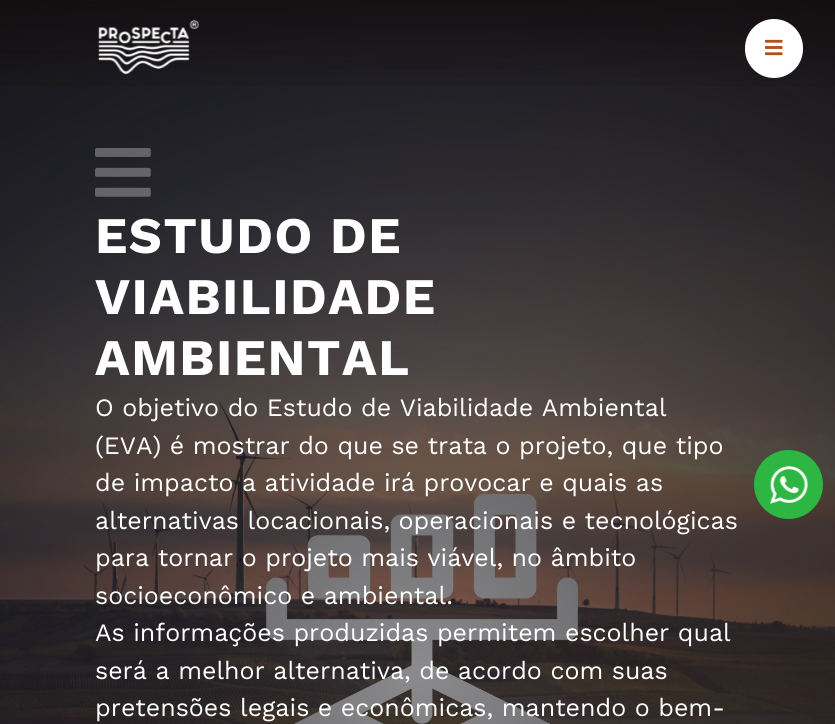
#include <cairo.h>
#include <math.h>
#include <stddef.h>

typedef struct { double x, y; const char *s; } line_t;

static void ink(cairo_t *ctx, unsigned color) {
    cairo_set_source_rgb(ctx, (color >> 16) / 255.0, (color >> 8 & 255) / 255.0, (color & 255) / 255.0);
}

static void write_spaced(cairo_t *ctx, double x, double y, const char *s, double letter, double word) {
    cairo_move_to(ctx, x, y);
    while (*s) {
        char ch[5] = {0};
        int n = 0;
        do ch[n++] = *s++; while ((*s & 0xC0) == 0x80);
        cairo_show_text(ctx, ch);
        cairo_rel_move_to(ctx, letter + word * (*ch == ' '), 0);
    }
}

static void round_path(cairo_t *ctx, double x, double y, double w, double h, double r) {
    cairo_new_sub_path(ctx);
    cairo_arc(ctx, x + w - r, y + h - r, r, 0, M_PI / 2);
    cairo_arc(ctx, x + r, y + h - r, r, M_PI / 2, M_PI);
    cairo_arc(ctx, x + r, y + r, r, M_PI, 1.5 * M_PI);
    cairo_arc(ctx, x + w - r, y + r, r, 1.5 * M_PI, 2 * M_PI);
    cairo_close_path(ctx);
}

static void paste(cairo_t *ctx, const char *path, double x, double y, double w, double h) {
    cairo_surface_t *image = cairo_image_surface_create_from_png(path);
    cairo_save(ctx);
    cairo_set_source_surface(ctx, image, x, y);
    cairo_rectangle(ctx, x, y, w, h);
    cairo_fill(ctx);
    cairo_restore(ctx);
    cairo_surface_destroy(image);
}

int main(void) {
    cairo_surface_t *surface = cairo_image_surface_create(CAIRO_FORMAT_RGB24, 835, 724);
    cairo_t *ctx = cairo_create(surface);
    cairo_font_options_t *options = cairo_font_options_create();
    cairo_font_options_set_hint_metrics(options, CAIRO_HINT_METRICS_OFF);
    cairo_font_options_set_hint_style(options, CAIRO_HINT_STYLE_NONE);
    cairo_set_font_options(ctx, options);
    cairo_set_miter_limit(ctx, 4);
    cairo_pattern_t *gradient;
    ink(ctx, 0x17161A);
    cairo_paint(ctx);
    paste(ctx, "media/3.png", 0, 0, 835, 724);
    gradient = cairo_pattern_create_radial(418, 672, 0, 418, 672, 791);
    cairo_pattern_add_color_stop_rgba(gradient, 0, 0.09, 0.086, 0.102, 0.5);
    cairo_pattern_add_color_stop_rgba(gradient, 1, 0.09, 0.086, 0.102, 1);
    cairo_set_source(ctx, gradient);
    cairo_pattern_destroy(gradient);
    cairo_rectangle(ctx, 0, 0, 835, 724);
    cairo_fill(ctx);
    gradient = cairo_pattern_create_linear(418, 99, 418, 0);
    cairo_pattern_add_color_stop_rgba(gradient, 0, 0.055, 0.024, 0.02, 0);
    cairo_pattern_add_color_stop_rgba(gradient, 1, 0.055, 0.024, 0.02, 0.5);
    cairo_set_source(ctx, gradient);
    cairo_pattern_destroy(gradient);
    cairo_rectangle(ctx, 0, 0, 835, 86);
    cairo_fill(ctx);
    paste(ctx, "media/1.png", 98, 20, 101, 55);
    ink(ctx, 0xFFFFFF);
    round_path(ctx, 745, 19, 58, 59, 29);
    cairo_fill(ctx);
    paste(ctx, "media/2.png", 765, 39, 18, 17);
    paste(ctx, "media/4.png", 95, 148, 56, 49);
    cairo_select_font_face(ctx, "Work Sans", CAIRO_FONT_SLANT_NORMAL, CAIRO_FONT_WEIGHT_BOLD);
    cairo_set_font_size(ctx, 51.25);
    {
        static const line_t items[] = {
            {95, 253, "ESTUDO DE"},
            {95, 314, "VIABILIDADE"},
            {95, 375, "AMBIENTAL"},
        };
        for (size_t i = 0; i < sizeof items / sizeof *items; i++) {
            write_spaced(ctx, items[i].x, items[i].y, items[i].s, 1.5, 0);
        }
    }
    cairo_select_font_face(ctx, "Work Sans", CAIRO_FONT_SLANT_NORMAL, CAIRO_FONT_WEIGHT_NORMAL);
    cairo_set_font_size(ctx, 25);
    {
        static const line_t items[] = {
            {95, 416, "O objetivo do Estudo de Viabilidade Ambiental"},
            {95, 454, "(EVA) é mostrar do que se trata o projeto, que tipo"},
            {95, 491, "de impacto a atividade irá provocar e quais as"},
            {95, 529, "alternativas locacionais, operacionais e tecnológicas"},
            {95, 566, "para tornar o projeto mais viável, no âmbito"},
            {95, 604, "socioeconômico e ambiental."},
            {95, 641, "As informações produzidas permitem escolher qual"},
            {95, 679, "será a melhor alternativa, de acordo com suas"},
            {95, 716, "pretensões legais e econômicas, mantendo o bem-"},
        };
        for (size_t i = 0; i < sizeof items / sizeof *items; i++) {
            cairo_move_to(ctx, items[i].x, items[i].y);
            cairo_show_text(ctx, items[i].s);
        }
    }
    ink(ctx, 0x2DB742);
    cairo_new_path(ctx);
    cairo_arc(ctx, 788.5, 484.5, 34.5, 0, 2 * M_PI);
    cairo_fill(ctx);
    paste(ctx, "media/5.png", 769, 466, 39, 38);
    cairo_surface_write_to_png(surface, "image.png");
    cairo_font_options_destroy(options);
    cairo_destroy(ctx);
    cairo_surface_destroy(surface);
    return 0;
}
